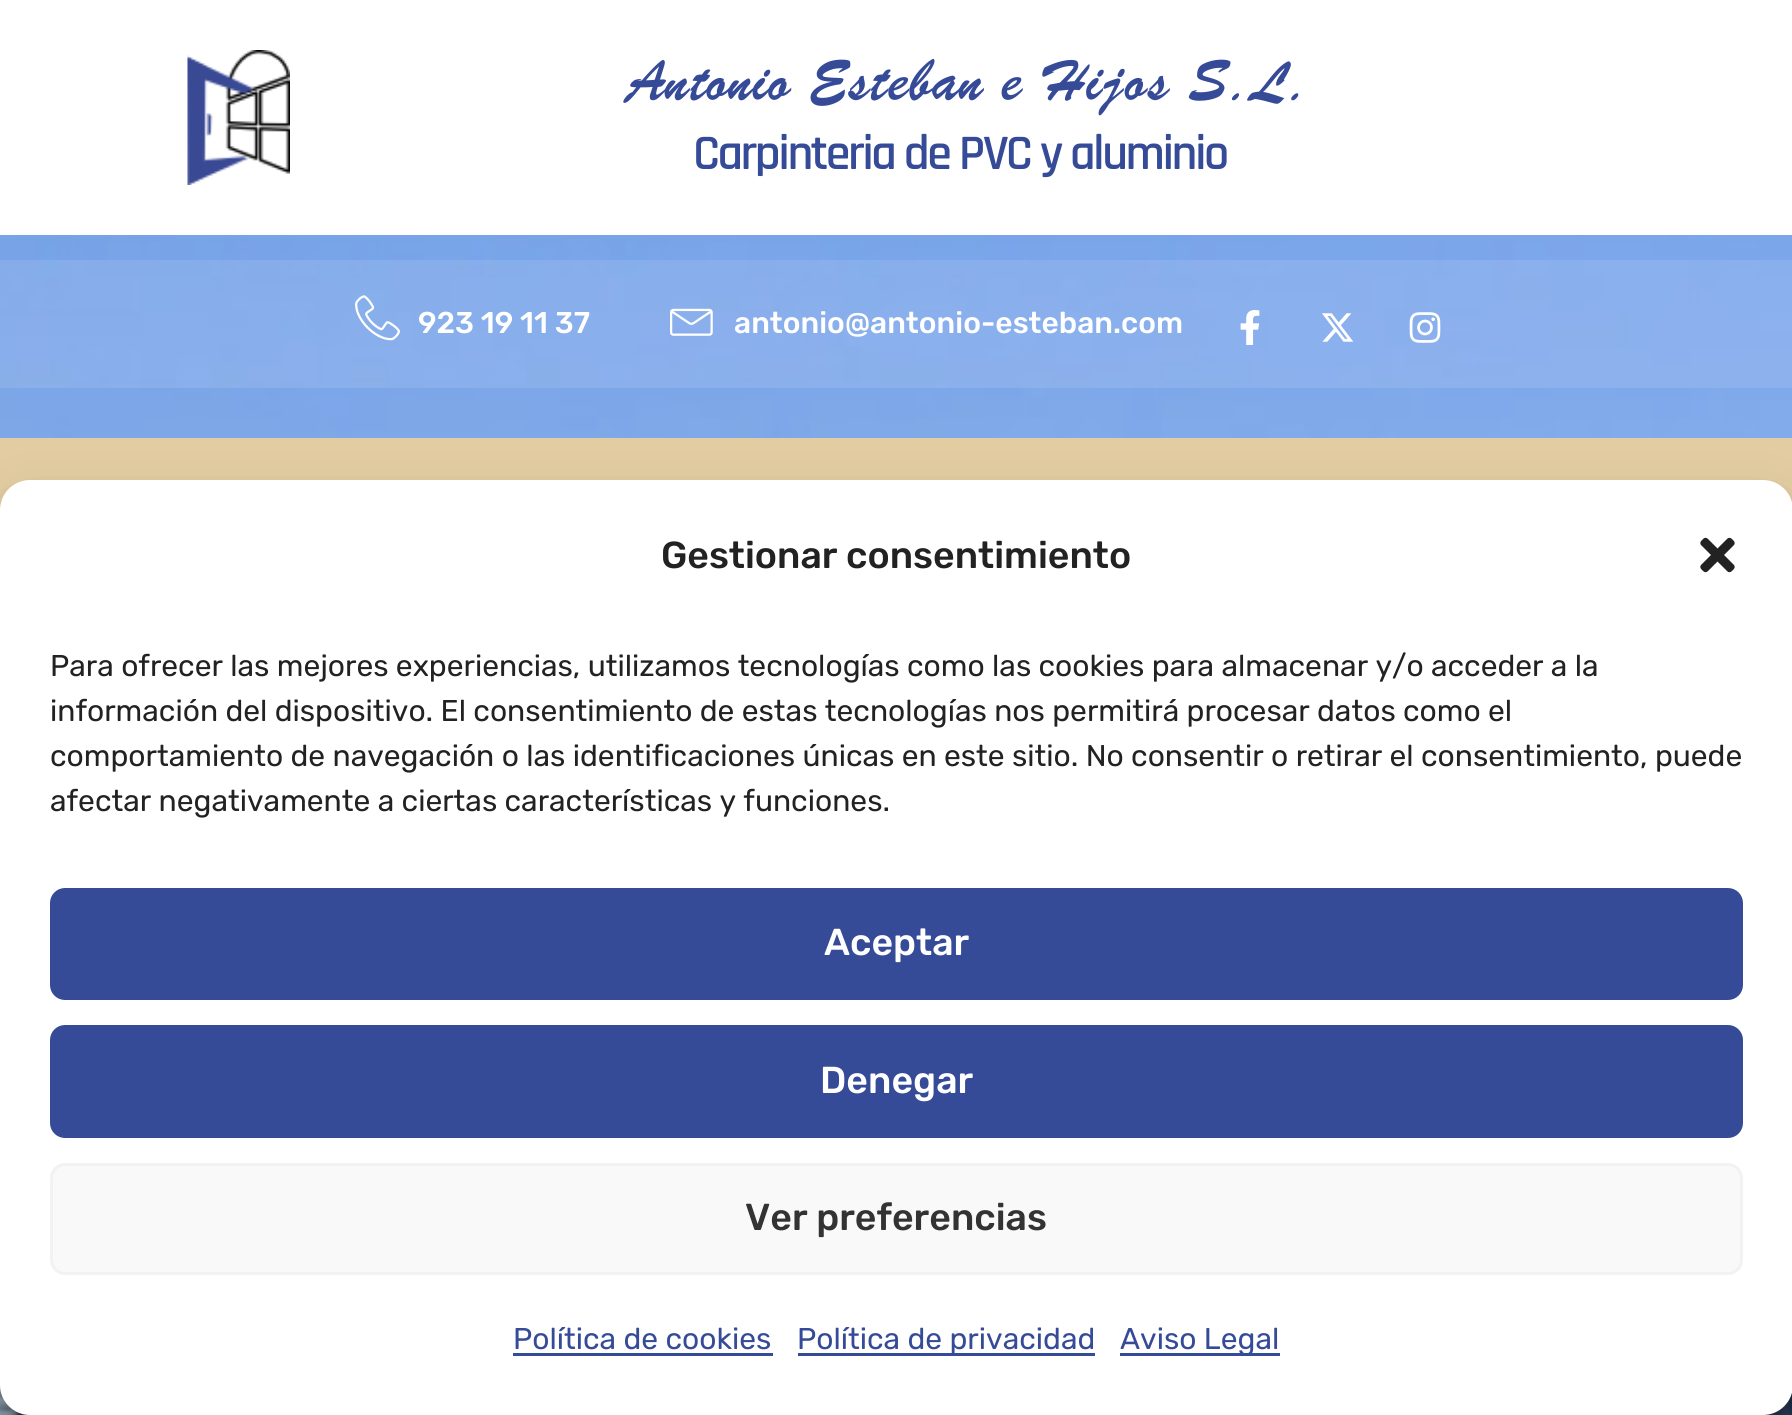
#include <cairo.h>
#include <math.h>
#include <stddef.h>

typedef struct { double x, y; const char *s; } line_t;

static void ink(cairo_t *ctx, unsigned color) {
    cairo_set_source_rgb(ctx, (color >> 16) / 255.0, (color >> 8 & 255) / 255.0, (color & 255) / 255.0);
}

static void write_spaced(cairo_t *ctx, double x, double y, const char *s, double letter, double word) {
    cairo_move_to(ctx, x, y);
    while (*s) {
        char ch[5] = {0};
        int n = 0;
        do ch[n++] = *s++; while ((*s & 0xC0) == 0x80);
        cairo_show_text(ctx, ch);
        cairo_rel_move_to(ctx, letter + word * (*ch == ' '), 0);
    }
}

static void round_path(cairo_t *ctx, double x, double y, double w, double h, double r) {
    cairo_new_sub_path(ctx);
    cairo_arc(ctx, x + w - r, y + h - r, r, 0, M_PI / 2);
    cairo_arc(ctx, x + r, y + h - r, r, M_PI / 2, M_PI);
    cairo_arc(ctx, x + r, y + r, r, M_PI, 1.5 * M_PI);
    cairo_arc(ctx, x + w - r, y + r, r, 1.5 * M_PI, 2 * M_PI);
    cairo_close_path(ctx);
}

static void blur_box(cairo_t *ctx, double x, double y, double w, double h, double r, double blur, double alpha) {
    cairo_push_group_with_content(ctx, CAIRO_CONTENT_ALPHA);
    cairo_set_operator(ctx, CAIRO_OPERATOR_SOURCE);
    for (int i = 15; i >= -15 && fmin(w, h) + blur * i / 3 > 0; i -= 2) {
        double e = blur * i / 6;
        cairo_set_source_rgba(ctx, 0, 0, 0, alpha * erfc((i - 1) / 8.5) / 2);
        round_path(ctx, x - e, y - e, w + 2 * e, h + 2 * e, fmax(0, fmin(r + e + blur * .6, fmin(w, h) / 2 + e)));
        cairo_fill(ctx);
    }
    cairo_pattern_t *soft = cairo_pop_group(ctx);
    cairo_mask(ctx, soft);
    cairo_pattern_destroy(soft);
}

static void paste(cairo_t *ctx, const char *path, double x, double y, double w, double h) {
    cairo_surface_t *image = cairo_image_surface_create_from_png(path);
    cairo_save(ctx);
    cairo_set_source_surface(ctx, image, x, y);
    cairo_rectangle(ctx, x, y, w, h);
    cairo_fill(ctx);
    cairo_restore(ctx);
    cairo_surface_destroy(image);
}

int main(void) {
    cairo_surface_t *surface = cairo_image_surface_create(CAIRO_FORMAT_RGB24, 1792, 1415);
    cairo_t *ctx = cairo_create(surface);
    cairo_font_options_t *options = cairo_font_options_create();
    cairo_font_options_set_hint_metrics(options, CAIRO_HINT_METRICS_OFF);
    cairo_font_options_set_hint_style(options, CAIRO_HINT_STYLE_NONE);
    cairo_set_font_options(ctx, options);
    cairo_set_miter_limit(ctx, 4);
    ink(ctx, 0xFFFFFF);
    cairo_paint(ctx);
    paste(ctx, "media/1.png", 187, 50, 103, 135);
    cairo_select_font_face(ctx, "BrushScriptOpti", CAIRO_FONT_SLANT_NORMAL, CAIRO_FONT_WEIGHT_NORMAL);
    cairo_set_font_size(ctx, 60);
    ink(ctx, 0x364B98);
    write_spaced(ctx, 618, 99, "Antonio Esteban e Hijos S.L.", 2, 0);
    cairo_select_font_face(ctx, "Rajdhani SemiBold", CAIRO_FONT_SLANT_NORMAL, CAIRO_FONT_WEIGHT_NORMAL);
    cairo_set_font_size(ctx, 50);
    write_spaced(ctx, 693, 169, "Carpinteria de PVC y aluminio", -2.5, 0);
    paste(ctx, "media/7.png", 0, 235, 1792, 1180);
    cairo_set_source_rgba(ctx, 1, 1, 1, 0.1);
    cairo_rectangle(ctx, 0, 260, 1792, 128);
    cairo_fill(ctx);
    paste(ctx, "media/2.png", 355, 295, 45, 46);
    cairo_select_font_face(ctx, "Rubik Medium", CAIRO_FONT_SLANT_NORMAL, CAIRO_FONT_WEIGHT_NORMAL);
    cairo_set_font_size(ctx, 30);
    ink(ctx, 0xFFFFFF);
    cairo_move_to(ctx, 418, 333);
    cairo_show_text(ctx, "923 19 11 37");
    paste(ctx, "media/3.png", 670, 308, 43, 28);
    cairo_move_to(ctx, 734, 333);
    cairo_show_text(ctx, "antonio@antonio-esteban.com");
    paste(ctx, "media/4.png", 1240, 310, 20, 35);
    paste(ctx, "media/5.png", 1322, 313, 32, 29);
    paste(ctx, "media/6.png", 1409, 312, 32, 31);
    ink(ctx, 0xE3CCA1);
    cairo_rectangle(ctx, 0, 438, 1792, 72);
    cairo_fill(ctx);
    ink(ctx, 0x000000);
    blur_box(ctx, 0, 495, 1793, 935, 30, 7.5, 0.23);
    blur_box(ctx, 0, 505, 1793, 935, 30, 25, 0.19);
    ink(ctx, 0xFFFFFF);
    round_path(ctx, 0, 480, 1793, 935, 30);
    cairo_fill(ctx);
    cairo_set_font_size(ctx, 37.5);
    ink(ctx, 0x222222);
    cairo_move_to(ctx, 661, 568);
    cairo_show_text(ctx, "Gestionar consentimiento");
    paste(ctx, "media/8.png", 1700, 537, 35, 36);
    cairo_select_font_face(ctx, "Rubik", CAIRO_FONT_SLANT_NORMAL, CAIRO_FONT_WEIGHT_NORMAL);
    cairo_set_font_size(ctx, 30);
    {
        static const line_t items[] = {
            {50, 676, "Para ofrecer las mejores experiencias, utilizamos tecnologías como las cookies para almacenar y/o acceder a la"},
            {50, 721, "información del dispositivo. El consentimiento de estas tecnologías nos permitirá procesar datos como el"},
            {50, 766, "comportamiento de navegación o las identificaciones únicas en este sitio. No consentir o retirar el consentimiento, puede"},
            {50, 811, "afectar negativamente a ciertas características y funciones."},
        };
        for (size_t i = 0; i < sizeof items / sizeof *items; i++) {
            cairo_move_to(ctx, items[i].x, items[i].y);
            cairo_show_text(ctx, items[i].s);
        }
    }
    ink(ctx, 0x364B98);
    round_path(ctx, 51.5, 889.5, 1690, 109, 13.5);
    cairo_fill_preserve(ctx);
    cairo_set_line_width(ctx, 3);
    cairo_stroke(ctx);
    cairo_select_font_face(ctx, "Rubik Medium", CAIRO_FONT_SLANT_NORMAL, CAIRO_FONT_WEIGHT_NORMAL);
    cairo_set_font_size(ctx, 37.5);
    ink(ctx, 0xFFFFFF);
    cairo_move_to(ctx, 824, 955);
    cairo_show_text(ctx, "Aceptar");
    ink(ctx, 0x364B98);
    round_path(ctx, 51.5, 1026.5, 1690, 110, 13.5);
    cairo_fill_preserve(ctx);
    cairo_stroke(ctx);
    ink(ctx, 0xFFFFFF);
    cairo_move_to(ctx, 820, 1093);
    cairo_show_text(ctx, "Denegar");
    ink(ctx, 0xF9F9F9);
    round_path(ctx, 51.5, 1164.5, 1690, 109, 13.5);
    cairo_fill_preserve(ctx);
    ink(ctx, 0xF2F2F2);
    cairo_stroke(ctx);
    ink(ctx, 0x333333);
    cairo_move_to(ctx, 745, 1230);
    cairo_show_text(ctx, "Ver preferencias");
    cairo_select_font_face(ctx, "Rubik", CAIRO_FONT_SLANT_NORMAL, CAIRO_FONT_WEIGHT_NORMAL);
    cairo_set_font_size(ctx, 30);
    ink(ctx, 0x364B98);
    cairo_move_to(ctx, 513, 1349);
    cairo_show_text(ctx, "Política de cookies");
    cairo_rectangle(ctx, 513, 1353, 260, 3);
    cairo_fill(ctx);
    cairo_rectangle(ctx, 798, 1353, 297, 3);
    cairo_fill(ctx);
    cairo_move_to(ctx, 797, 1349);
    cairo_show_text(ctx, "Política de privacidad");
    cairo_rectangle(ctx, 1120, 1353, 160, 3);
    cairo_fill(ctx);
    cairo_move_to(ctx, 1120, 1349);
    cairo_show_text(ctx, "Aviso Legal");
    cairo_surface_write_to_png(surface, "image.png");
    cairo_font_options_destroy(options);
    cairo_destroy(ctx);
    cairo_surface_destroy(surface);
    return 0;
}
